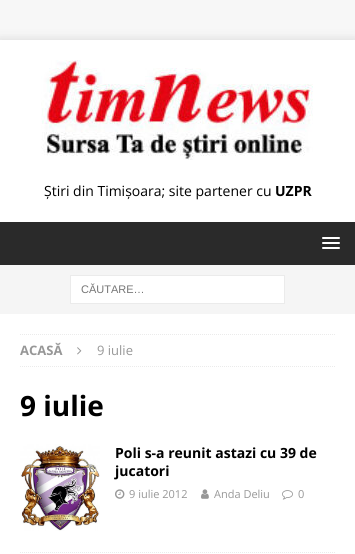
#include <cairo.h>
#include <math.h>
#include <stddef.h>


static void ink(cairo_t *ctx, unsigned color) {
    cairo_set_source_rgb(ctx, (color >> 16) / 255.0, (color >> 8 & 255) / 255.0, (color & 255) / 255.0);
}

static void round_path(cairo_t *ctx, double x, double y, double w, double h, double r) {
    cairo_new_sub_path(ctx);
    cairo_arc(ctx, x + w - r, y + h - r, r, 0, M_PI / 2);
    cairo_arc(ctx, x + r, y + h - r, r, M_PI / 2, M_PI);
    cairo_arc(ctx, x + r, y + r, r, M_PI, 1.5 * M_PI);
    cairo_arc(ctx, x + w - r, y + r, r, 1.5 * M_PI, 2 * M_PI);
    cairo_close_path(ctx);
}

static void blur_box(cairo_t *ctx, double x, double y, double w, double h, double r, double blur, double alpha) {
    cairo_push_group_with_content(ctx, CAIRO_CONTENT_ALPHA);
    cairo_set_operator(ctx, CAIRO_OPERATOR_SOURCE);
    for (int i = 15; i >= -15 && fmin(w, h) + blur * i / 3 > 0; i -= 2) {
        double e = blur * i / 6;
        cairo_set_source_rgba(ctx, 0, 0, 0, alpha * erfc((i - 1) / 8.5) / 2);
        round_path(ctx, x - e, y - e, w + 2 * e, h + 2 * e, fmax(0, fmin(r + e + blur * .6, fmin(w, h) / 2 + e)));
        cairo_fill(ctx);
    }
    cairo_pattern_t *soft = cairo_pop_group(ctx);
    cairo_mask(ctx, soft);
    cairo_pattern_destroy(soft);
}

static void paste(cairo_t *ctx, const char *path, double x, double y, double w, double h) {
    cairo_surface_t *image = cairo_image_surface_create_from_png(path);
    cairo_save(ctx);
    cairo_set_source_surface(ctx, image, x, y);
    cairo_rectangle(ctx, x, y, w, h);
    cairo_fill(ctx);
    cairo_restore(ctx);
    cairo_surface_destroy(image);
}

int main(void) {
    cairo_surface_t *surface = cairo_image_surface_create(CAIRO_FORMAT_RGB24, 355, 554);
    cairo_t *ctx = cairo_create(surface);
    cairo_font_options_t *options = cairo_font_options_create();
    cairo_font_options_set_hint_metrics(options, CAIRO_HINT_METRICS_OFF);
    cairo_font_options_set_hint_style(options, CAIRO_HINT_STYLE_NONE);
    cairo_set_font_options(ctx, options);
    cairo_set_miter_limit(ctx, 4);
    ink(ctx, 0xF7F7F7);
    cairo_paint(ctx);
    ink(ctx, 0x323232);
    blur_box(ctx, 0, 40, 355, 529, 0, 5, 0.17);
    ink(ctx, 0xFFFFFF);
    cairo_rectangle(ctx, 0, 40, 355, 182);
    cairo_fill(ctx);
    paste(ctx, "media/1.png", 41, 60, 272, 100);
    cairo_select_font_face(ctx, "Open Sans", CAIRO_FONT_SLANT_NORMAL, CAIRO_FONT_WEIGHT_NORMAL);
    cairo_set_font_size(ctx, 14);
    ink(ctx, 0x000000);
    cairo_move_to(ctx, 44, 196);
    cairo_show_text(ctx, "Știri din Timișoara; site partener cu");
    cairo_select_font_face(ctx, "Open Sans", CAIRO_FONT_SLANT_NORMAL, CAIRO_FONT_WEIGHT_BOLD);
    cairo_move_to(ctx, 275, 196);
    cairo_show_text(ctx, "UZPR");
    ink(ctx, 0x2A2A2A);
    cairo_rectangle(ctx, 0, 222, 355, 43);
    cairo_fill(ctx);
    ink(ctx, 0xFFFFFF);
    round_path(ctx, 322, 237, 18, 2, 1);
    cairo_fill(ctx);
    round_path(ctx, 322, 242, 18, 2, 1);
    cairo_fill(ctx);
    round_path(ctx, 322, 247, 18, 2, 1);
    cairo_fill(ctx);
    ink(ctx, 0xF5F5F5);
    cairo_rectangle(ctx, 0, 265, 355, 49);
    cairo_fill(ctx);
    ink(ctx, 0xFFFFFF);
    cairo_rectangle(ctx, 70.5, 275.5, 214, 28);
    cairo_fill_preserve(ctx);
    ink(ctx, 0xEBEBEB);
    cairo_set_line_width(ctx, 1);
    cairo_stroke(ctx);
    cairo_select_font_face(ctx, "Liberation Sans", CAIRO_FONT_SLANT_NORMAL, CAIRO_FONT_WEIGHT_NORMAL);
    cairo_set_font_size(ctx, 11);
    ink(ctx, 0x757575);
    cairo_move_to(ctx, 81, 293);
    cairo_show_text(ctx, "CĂUTARE…");
    ink(ctx, 0xFFFFFF);
    cairo_rectangle(ctx, 0, 314, 355, 240);
    cairo_fill(ctx);
    cairo_new_path(ctx);
    cairo_move_to(ctx, 20, 334.5);
    cairo_line_to(ctx, 335, 334.5);
    ink(ctx, 0xEBEBEB);
    cairo_set_dash(ctx, (double[]){1, 1}, 2, 0);
    cairo_stroke(ctx);
    cairo_new_path(ctx);
    cairo_move_to(ctx, 20, 366.5);
    cairo_line_to(ctx, 335, 366.5);
    cairo_stroke(ctx);
    cairo_select_font_face(ctx, "Open Sans", CAIRO_FONT_SLANT_NORMAL, CAIRO_FONT_WEIGHT_BOLD);
    cairo_set_font_size(ctx, 13);
    ink(ctx, 0x979797);
    cairo_move_to(ctx, 20, 355);
    cairo_show_text(ctx, "ACASĂ");
    paste(ctx, "media/2.png", 77, 347, 5, 8);
    cairo_select_font_face(ctx, "Open Sans", CAIRO_FONT_SLANT_NORMAL, CAIRO_FONT_WEIGHT_NORMAL);
    cairo_move_to(ctx, 97, 355);
    cairo_show_text(ctx, "9 iulie");
    cairo_select_font_face(ctx, "Open Sans", CAIRO_FONT_SLANT_NORMAL, CAIRO_FONT_WEIGHT_BOLD);
    cairo_set_font_size(ctx, 28);
    ink(ctx, 0x000000);
    cairo_move_to(ctx, 20, 416);
    cairo_show_text(ctx, "9 iulie");
    cairo_new_path(ctx);
    cairo_move_to(ctx, 20, 552.5);
    cairo_line_to(ctx, 335, 552.5);
    ink(ctx, 0xEBEBEB);
    cairo_stroke(ctx);
    paste(ctx, "media/3.png", 20, 444, 80, 87);
    cairo_set_font_size(ctx, 14);
    ink(ctx, 0x000000);
    cairo_move_to(ctx, 115, 458);
    cairo_show_text(ctx, "Poli s-a reunit astazi cu 39 de");
    cairo_move_to(ctx, 115, 476);
    cairo_show_text(ctx, "jucatori");
    paste(ctx, "media/4.png", 115, 489, 10, 10);
    cairo_select_font_face(ctx, "Open Sans", CAIRO_FONT_SLANT_NORMAL, CAIRO_FONT_WEIGHT_NORMAL);
    cairo_set_font_size(ctx, 11);
    ink(ctx, 0x979797);
    cairo_move_to(ctx, 129, 498);
    cairo_show_text(ctx, "9 iulie 2012");
    paste(ctx, "media/5.png", 201, 489, 8, 10);
    cairo_move_to(ctx, 214, 498);
    cairo_show_text(ctx, "Anda Deliu");
    paste(ctx, "media/6.png", 282, 490, 11, 10);
    cairo_move_to(ctx, 298, 498);
    cairo_show_text(ctx, "0");
    cairo_surface_write_to_png(surface, "image.png");
    cairo_font_options_destroy(options);
    cairo_destroy(ctx);
    cairo_surface_destroy(surface);
    return 0;
}
